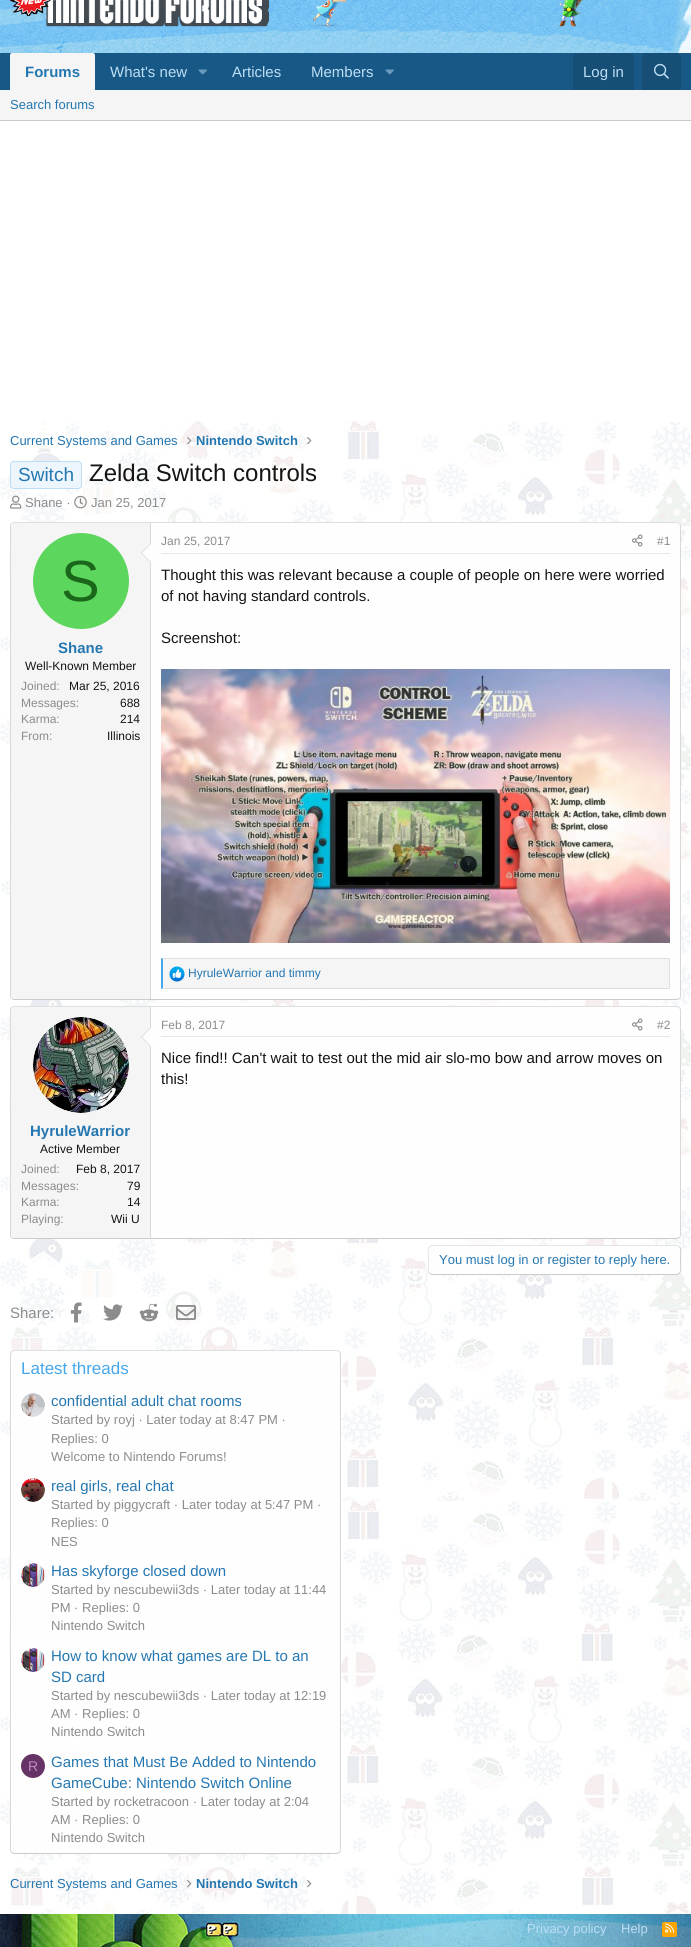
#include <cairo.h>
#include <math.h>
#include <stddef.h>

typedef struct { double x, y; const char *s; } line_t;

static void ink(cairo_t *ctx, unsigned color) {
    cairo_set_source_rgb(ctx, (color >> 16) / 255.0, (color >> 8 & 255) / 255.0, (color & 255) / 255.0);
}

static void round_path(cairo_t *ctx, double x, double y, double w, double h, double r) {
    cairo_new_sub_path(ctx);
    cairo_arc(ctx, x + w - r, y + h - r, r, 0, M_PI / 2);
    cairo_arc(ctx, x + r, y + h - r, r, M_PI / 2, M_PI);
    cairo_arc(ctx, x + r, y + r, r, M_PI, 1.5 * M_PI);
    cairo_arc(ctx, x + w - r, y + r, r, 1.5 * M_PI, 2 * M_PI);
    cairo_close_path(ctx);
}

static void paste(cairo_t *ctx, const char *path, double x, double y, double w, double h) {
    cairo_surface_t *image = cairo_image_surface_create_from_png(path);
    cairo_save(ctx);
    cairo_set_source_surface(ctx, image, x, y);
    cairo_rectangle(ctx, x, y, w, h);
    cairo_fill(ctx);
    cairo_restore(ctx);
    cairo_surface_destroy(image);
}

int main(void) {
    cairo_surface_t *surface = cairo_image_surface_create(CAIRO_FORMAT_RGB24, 691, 1947);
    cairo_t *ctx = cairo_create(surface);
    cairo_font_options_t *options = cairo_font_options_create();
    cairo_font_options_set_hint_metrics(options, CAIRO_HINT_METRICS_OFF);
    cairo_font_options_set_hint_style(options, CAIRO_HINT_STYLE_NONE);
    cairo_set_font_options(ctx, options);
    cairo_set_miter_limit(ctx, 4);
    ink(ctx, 0xFFFFFF);
    cairo_paint(ctx);
    paste(ctx, "media/1.png", 0, 0, 691, 53);
    paste(ctx, "media/2.png", 10, 0, 603, 27);
    ink(ctx, 0x185886);
    cairo_rectangle(ctx, 0, 53, 691, 37);
    cairo_fill(ctx);
    ink(ctx, 0xF5F5F5);
    cairo_new_path(ctx);
    cairo_move_to(ctx, 12, 53);
    cairo_line_to(ctx, 93, 53);
    cairo_curve_to(ctx, 94, 53, 95, 54, 95, 55);
    cairo_line_to(ctx, 95, 90);
    cairo_line_to(ctx, 10, 90);
    cairo_line_to(ctx, 10, 55);
    cairo_curve_to(ctx, 10, 54, 11, 53, 12, 53);
    cairo_close_path(ctx);
    cairo_fill(ctx);
    cairo_select_font_face(ctx, "Liberation Sans", CAIRO_FONT_SLANT_NORMAL, CAIRO_FONT_WEIGHT_BOLD);
    cairo_set_font_size(ctx, 15);
    ink(ctx, 0x2577B1);
    cairo_move_to(ctx, 25, 77);
    cairo_show_text(ctx, "Forums");
    cairo_select_font_face(ctx, "Liberation Sans", CAIRO_FONT_SLANT_NORMAL, CAIRO_FONT_WEIGHT_NORMAL);
    ink(ctx, 0xBCDEF5);
    cairo_move_to(ctx, 110, 77);
    cairo_show_text(ctx, "What's new");
    paste(ctx, "media/3.png", 198, 69, 9, 6);
    cairo_move_to(ctx, 232, 77);
    cairo_show_text(ctx, "Articles");
    cairo_move_to(ctx, 311, 77);
    cairo_show_text(ctx, "Members");
    paste(ctx, "media/3.png", 385, 69, 9, 6);
    ink(ctx, 0x174E75);
    cairo_new_path(ctx);
    cairo_move_to(ctx, 577, 53);
    cairo_line_to(ctx, 630, 53);
    cairo_curve_to(ctx, 632, 53, 634, 55, 634, 57);
    cairo_line_to(ctx, 634, 90);
    cairo_line_to(ctx, 573, 90);
    cairo_line_to(ctx, 573, 57);
    cairo_curve_to(ctx, 573, 55, 575, 53, 577, 53);
    cairo_close_path(ctx);
    cairo_fill(ctx);
    ink(ctx, 0xBCDEF5);
    cairo_move_to(ctx, 583, 77);
    cairo_show_text(ctx, "Log in");
    ink(ctx, 0x174E75);
    cairo_new_path(ctx);
    cairo_move_to(ctx, 646, 53);
    cairo_line_to(ctx, 677, 53);
    cairo_curve_to(ctx, 679, 53, 681, 55, 681, 57);
    cairo_line_to(ctx, 681, 90);
    cairo_line_to(ctx, 642, 90);
    cairo_line_to(ctx, 642, 57);
    cairo_curve_to(ctx, 642, 55, 644, 53, 646, 53);
    cairo_close_path(ctx);
    cairo_fill(ctx);
    paste(ctx, "media/4.png", 654, 63, 15, 16);
    ink(ctx, 0xF5F5F5);
    cairo_rectangle(ctx, 0, 90, 691, 30);
    cairo_fill(ctx);
    ink(ctx, 0xCBCBCB);
    cairo_rectangle(ctx, 0, 120, 691, 1);
    cairo_fill(ctx);
    cairo_set_font_size(ctx, 13);
    ink(ctx, 0x2577B1);
    cairo_move_to(ctx, 10, 109);
    cairo_show_text(ctx, "Search forums");
    paste(ctx, "media/5.png", 0, 421, 691, 1493);
    cairo_move_to(ctx, 10, 445);
    cairo_show_text(ctx, "Current Systems and Games");
    paste(ctx, "media/6.png", 187, 437, 5, 8);
    cairo_select_font_face(ctx, "Liberation Sans", CAIRO_FONT_SLANT_NORMAL, CAIRO_FONT_WEIGHT_BOLD);
    cairo_move_to(ctx, 196, 445);
    cairo_show_text(ctx, "Nintendo Switch");
    paste(ctx, "media/7.png", 307, 437, 5, 8);
    ink(ctx, 0xEDF6FD);
    round_path(ctx, 10.5, 461.5, 71, 27, 3.5);
    cairo_fill_preserve(ctx);
    ink(ctx, 0xBCDEF5);
    cairo_set_line_width(ctx, 1);
    cairo_stroke(ctx);
    cairo_select_font_face(ctx, "Liberation Sans", CAIRO_FONT_SLANT_NORMAL, CAIRO_FONT_WEIGHT_NORMAL);
    cairo_set_font_size(ctx, 19);
    ink(ctx, 0x2577B1);
    cairo_move_to(ctx, 18, 481);
    cairo_show_text(ctx, "Switch");
    cairo_set_font_size(ctx, 24);
    ink(ctx, 0x141414);
    cairo_move_to(ctx, 89, 481);
    cairo_show_text(ctx, "Zelda Switch controls");
    paste(ctx, "media/8.png", 10, 495, 12, 14);
    cairo_set_font_size(ctx, 13);
    ink(ctx, 0x8C8C8C);
    cairo_move_to(ctx, 25, 507);
    cairo_show_text(ctx, "Shane ·");
    paste(ctx, "media/9.png", 74, 495, 13, 14);
    cairo_move_to(ctx, 91, 507);
    cairo_show_text(ctx, "Jan 25, 2017");
    ink(ctx, 0xFEFEFE);
    round_path(ctx, 10, 522, 671, 478, 4);
    cairo_fill(ctx);
    cairo_new_path(ctx);
    cairo_move_to(ctx, 11.5, 523.5);
    cairo_line_to(ctx, 14, 522.5);
    cairo_line_to(ctx, 677, 522.5);
    cairo_line_to(ctx, 679.5, 523.5);
    ink(ctx, 0xDFDFDF);
    cairo_stroke(ctx);
    cairo_new_path(ctx);
    cairo_move_to(ctx, 679.5, 523.5);
    cairo_curve_to(ctx, 680, 524, 680.5, 525, 680.5, 526);
    cairo_line_to(ctx, 680.5, 996);
    cairo_curve_to(ctx, 680.5, 997, 680, 998, 679.5, 998.5);
    ink(ctx, 0xD8D8D8);
    cairo_stroke(ctx);
    cairo_new_path(ctx);
    cairo_move_to(ctx, 679.5, 998.5);
    cairo_line_to(ctx, 677, 999.5);
    cairo_line_to(ctx, 14, 999.5);
    cairo_line_to(ctx, 11.5, 998.5);
    ink(ctx, 0xCBCBCB);
    cairo_stroke(ctx);
    cairo_new_path(ctx);
    cairo_move_to(ctx, 11.5, 998.5);
    cairo_curve_to(ctx, 11, 998, 10.5, 997, 10.5, 996);
    cairo_line_to(ctx, 10.5, 526);
    cairo_curve_to(ctx, 10.5, 525, 11, 524, 11.5, 523.5);
    ink(ctx, 0xD8D8D8);
    cairo_stroke(ctx);
    ink(ctx, 0xF5F5F5);
    cairo_new_path(ctx);
    cairo_move_to(ctx, 14, 523);
    cairo_line_to(ctx, 151, 523);
    cairo_line_to(ctx, 151, 999);
    cairo_line_to(ctx, 14, 999);
    cairo_curve_to(ctx, 12.5, 999, 11, 997.5, 11, 996);
    cairo_line_to(ctx, 11, 526);
    cairo_curve_to(ctx, 11, 524.5, 12.5, 523, 14, 523);
    cairo_close_path(ctx);
    cairo_fill(ctx);
    ink(ctx, 0xD8D8D8);
    cairo_rectangle(ctx, 150, 523, 1, 476);
    cairo_fill(ctx);
    cairo_new_path(ctx);
    cairo_move_to(ctx, 151, 543);
    cairo_line_to(ctx, 151, 563);
    cairo_line_to(ctx, 141, 553);
    cairo_close_path(ctx);
    cairo_fill(ctx);
    ink(ctx, 0xFEFEFE);
    cairo_new_path(ctx);
    cairo_move_to(ctx, 151, 544);
    cairo_line_to(ctx, 151, 562);
    cairo_line_to(ctx, 142, 553);
    cairo_close_path(ctx);
    cairo_fill(ctx);
    ink(ctx, 0x5CD65C);
    cairo_arc(ctx, 81, 581, 48, 0, 2 * M_PI);
    cairo_fill(ctx);
    cairo_set_font_size(ctx, 58);
    ink(ctx, 0x1A661A);
    cairo_move_to(ctx, 61, 601);
    cairo_show_text(ctx, "S");
    cairo_select_font_face(ctx, "Liberation Sans", CAIRO_FONT_SLANT_NORMAL, CAIRO_FONT_WEIGHT_BOLD);
    cairo_set_font_size(ctx, 15);
    ink(ctx, 0x2577B1);
    cairo_move_to(ctx, 58, 653);
    cairo_show_text(ctx, "Shane");
    cairo_select_font_face(ctx, "Liberation Sans", CAIRO_FONT_SLANT_NORMAL, CAIRO_FONT_WEIGHT_NORMAL);
    cairo_set_font_size(ctx, 12);
    ink(ctx, 0x141414);
    cairo_move_to(ctx, 25, 670);
    cairo_show_text(ctx, "Well-Known Member");
    ink(ctx, 0x8C8C8C);
    cairo_move_to(ctx, 21, 690);
    cairo_show_text(ctx, "Joined:");
    ink(ctx, 0x141414);
    cairo_move_to(ctx, 69, 690);
    cairo_show_text(ctx, "Mar 25, 2016");
    ink(ctx, 0x8C8C8C);
    cairo_move_to(ctx, 21, 707);
    cairo_show_text(ctx, "Messages:");
    ink(ctx, 0x141414);
    cairo_move_to(ctx, 120, 707);
    cairo_show_text(ctx, "688");
    ink(ctx, 0x8C8C8C);
    cairo_move_to(ctx, 21, 723);
    cairo_show_text(ctx, "Karma:");
    ink(ctx, 0x141414);
    cairo_move_to(ctx, 120, 723);
    cairo_show_text(ctx, "214");
    ink(ctx, 0x8C8C8C);
    cairo_move_to(ctx, 21, 740);
    cairo_show_text(ctx, "From:");
    ink(ctx, 0x141414);
    cairo_move_to(ctx, 107, 740);
    cairo_show_text(ctx, "Illinois");
    ink(ctx, 0xE7E7E7);
    cairo_rectangle(ctx, 161, 553, 509, 1);
    cairo_fill(ctx);
    ink(ctx, 0x8C8C8C);
    cairo_move_to(ctx, 161, 545);
    cairo_show_text(ctx, "Jan 25, 2017");
    paste(ctx, "media/10.png", 632, 534, 11, 13);
    cairo_move_to(ctx, 657, 545);
    cairo_show_text(ctx, "#1");
    cairo_set_font_size(ctx, 15);
    ink(ctx, 0x141414);
    {
        static const line_t items[] = {
            {161, 580, "Thought this was relevant because a couple of people on here were worried"},
            {161, 601, "of not having standard controls."},
            {161, 643, "Screenshot:"},
        };
        for (size_t i = 0; i < sizeof items / sizeof *items; i++) {
            cairo_move_to(ctx, items[i].x, items[i].y);
            cairo_show_text(ctx, items[i].s);
        }
    }
    paste(ctx, "media/11.png", 161, 669, 509, 274);
    ink(ctx, 0xF5F5F5);
    cairo_rectangle(ctx, 163, 959, 506, 29);
    cairo_fill(ctx);
    ink(ctx, 0xDFDFDF);
    cairo_new_path(ctx);
    cairo_move_to(ctx, 161, 958);
    cairo_line_to(ctx, 670, 958);
    cairo_line_to(ctx, 669, 959);
    cairo_line_to(ctx, 163, 959);
    cairo_close_path(ctx);
    cairo_fill(ctx);
    cairo_rectangle(ctx, 669, 958, 1, 31);
    cairo_fill(ctx);
    cairo_new_path(ctx);
    cairo_move_to(ctx, 670, 989);
    cairo_line_to(ctx, 161, 989);
    cairo_line_to(ctx, 163, 988);
    cairo_line_to(ctx, 669, 988);
    cairo_close_path(ctx);
    cairo_fill(ctx);
    ink(ctx, 0x47A7EB);
    cairo_new_path(ctx);
    cairo_move_to(ctx, 161, 989);
    cairo_line_to(ctx, 161, 958);
    cairo_line_to(ctx, 163, 959);
    cairo_line_to(ctx, 163, 988);
    cairo_close_path(ctx);
    cairo_fill(ctx);
    paste(ctx, "media/12.png", 169, 966, 16, 16);
    cairo_set_font_size(ctx, 12);
    ink(ctx, 0x2577B1);
    cairo_move_to(ctx, 188, 977);
    cairo_show_text(ctx, "HyruleWarrior and timmy");
    ink(ctx, 0xFEFEFE);
    round_path(ctx, 10, 1006, 671, 233, 4);
    cairo_fill(ctx);
    cairo_new_path(ctx);
    cairo_move_to(ctx, 11.5, 1007.5);
    cairo_line_to(ctx, 14, 1006.5);
    cairo_line_to(ctx, 677, 1006.5);
    cairo_line_to(ctx, 679.5, 1007.5);
    ink(ctx, 0xDFDFDF);
    cairo_stroke(ctx);
    cairo_new_path(ctx);
    cairo_move_to(ctx, 679.5, 1007.5);
    cairo_curve_to(ctx, 680, 1008, 680.5, 1009, 680.5, 1010);
    cairo_line_to(ctx, 680.5, 1235);
    cairo_curve_to(ctx, 680.5, 1236, 680, 1237, 679.5, 1237.5);
    ink(ctx, 0xD8D8D8);
    cairo_stroke(ctx);
    cairo_new_path(ctx);
    cairo_move_to(ctx, 679.5, 1237.5);
    cairo_line_to(ctx, 677, 1238.5);
    cairo_line_to(ctx, 14, 1238.5);
    cairo_line_to(ctx, 11.5, 1237.5);
    ink(ctx, 0xCBCBCB);
    cairo_stroke(ctx);
    cairo_new_path(ctx);
    cairo_move_to(ctx, 11.5, 1237.5);
    cairo_curve_to(ctx, 11, 1237, 10.5, 1236, 10.5, 1235);
    cairo_line_to(ctx, 10.5, 1010);
    cairo_curve_to(ctx, 10.5, 1009, 11, 1008, 11.5, 1007.5);
    ink(ctx, 0xD8D8D8);
    cairo_stroke(ctx);
    ink(ctx, 0xE7E7E7);
    cairo_rectangle(ctx, 161, 1036, 509, 1);
    cairo_fill(ctx);
    ink(ctx, 0x8C8C8C);
    cairo_move_to(ctx, 161, 1029);
    cairo_show_text(ctx, "Feb 8, 2017");
    paste(ctx, "media/10.png", 632, 1018, 11, 13);
    cairo_move_to(ctx, 657, 1029);
    cairo_show_text(ctx, "#2");
    cairo_set_font_size(ctx, 15);
    ink(ctx, 0x141414);
    cairo_move_to(ctx, 161, 1063);
    cairo_show_text(ctx, "Nice find!! Can't wait to test out the mid air slo-mo bow and arrow moves on");
    cairo_move_to(ctx, 161, 1084);
    cairo_show_text(ctx, "this!");
    ink(ctx, 0xF5F5F5);
    cairo_new_path(ctx);
    cairo_move_to(ctx, 14, 1007);
    cairo_line_to(ctx, 151, 1007);
    cairo_line_to(ctx, 151, 1238);
    cairo_line_to(ctx, 14, 1238);
    cairo_curve_to(ctx, 12.5, 1238, 11, 1236.5, 11, 1235);
    cairo_line_to(ctx, 11, 1010);
    cairo_curve_to(ctx, 11, 1008.5, 12.5, 1007, 14, 1007);
    cairo_close_path(ctx);
    cairo_fill(ctx);
    ink(ctx, 0xD8D8D8);
    cairo_rectangle(ctx, 150, 1007, 1, 231);
    cairo_fill(ctx);
    ink(ctx, 0xFEFEFE);
    cairo_arc(ctx, 81, 1065, 48, 0, 2 * M_PI);
    cairo_fill(ctx);
    paste(ctx, "media/13.png", 33, 1017, 96, 96);
    ink(ctx, 0xD8D8D8);
    cairo_new_path(ctx);
    cairo_move_to(ctx, 151, 1027);
    cairo_line_to(ctx, 151, 1047);
    cairo_line_to(ctx, 141, 1037);
    cairo_close_path(ctx);
    cairo_fill(ctx);
    ink(ctx, 0xFEFEFE);
    cairo_new_path(ctx);
    cairo_move_to(ctx, 151, 1028);
    cairo_line_to(ctx, 151, 1046);
    cairo_line_to(ctx, 142, 1037);
    cairo_close_path(ctx);
    cairo_fill(ctx);
    cairo_select_font_face(ctx, "Liberation Sans", CAIRO_FONT_SLANT_NORMAL, CAIRO_FONT_WEIGHT_BOLD);
    ink(ctx, 0x2577B1);
    cairo_move_to(ctx, 30, 1136);
    cairo_show_text(ctx, "HyruleWarrior");
    cairo_select_font_face(ctx, "Liberation Sans", CAIRO_FONT_SLANT_NORMAL, CAIRO_FONT_WEIGHT_NORMAL);
    cairo_set_font_size(ctx, 12);
    ink(ctx, 0x141414);
    cairo_move_to(ctx, 40, 1153);
    cairo_show_text(ctx, "Active Member");
    ink(ctx, 0x8C8C8C);
    cairo_move_to(ctx, 21, 1173);
    cairo_show_text(ctx, "Joined:");
    ink(ctx, 0x141414);
    cairo_move_to(ctx, 76, 1173);
    cairo_show_text(ctx, "Feb 8, 2017");
    ink(ctx, 0x8C8C8C);
    cairo_move_to(ctx, 21, 1190);
    cairo_show_text(ctx, "Messages:");
    ink(ctx, 0x141414);
    cairo_move_to(ctx, 127, 1190);
    cairo_show_text(ctx, "79");
    ink(ctx, 0x8C8C8C);
    cairo_move_to(ctx, 21, 1206);
    cairo_show_text(ctx, "Karma:");
    ink(ctx, 0x141414);
    cairo_move_to(ctx, 127, 1206);
    cairo_show_text(ctx, "14");
    ink(ctx, 0x8C8C8C);
    cairo_move_to(ctx, 21, 1223);
    cairo_show_text(ctx, "Playing:");
    ink(ctx, 0x141414);
    cairo_move_to(ctx, 111, 1223);
    cairo_show_text(ctx, "Wii U");
    ink(ctx, 0xFEFEFE);
    round_path(ctx, 428, 1245, 253, 30, 4);
    cairo_fill(ctx);
    cairo_new_path(ctx);
    cairo_move_to(ctx, 679.5, 1246.5);
    cairo_curve_to(ctx, 681.5, 1248.5, 680.5, 1257, 680.5, 1260);
    cairo_curve_to(ctx, 680.5, 1263, 682, 1271.5, 679, 1273.5);
    cairo_line_to(ctx, 677.5, 1274.5);
    cairo_line_to(ctx, 432, 1274.5);
    cairo_line_to(ctx, 429.5, 1273.5);
    ink(ctx, 0xCBCBCB);
    cairo_stroke(ctx);
    cairo_new_path(ctx);
    cairo_move_to(ctx, 429.5, 1273.5);
    cairo_curve_to(ctx, 427.5, 1271.5, 428.5, 1263, 428.5, 1260);
    cairo_curve_to(ctx, 428.5, 1257, 427, 1248.5, 430, 1246.5);
    cairo_line_to(ctx, 431.5, 1245.5);
    cairo_line_to(ctx, 677, 1245.5);
    cairo_line_to(ctx, 679.5, 1246.5);
    ink(ctx, 0xE5E5E5);
    cairo_stroke(ctx);
    cairo_set_font_size(ctx, 13);
    ink(ctx, 0x2577B1);
    cairo_move_to(ctx, 439, 1264);
    cairo_show_text(ctx, "You must log in or register to reply here.");
    cairo_set_font_size(ctx, 15);
    ink(ctx, 0x8C8C8C);
    cairo_move_to(ctx, 10, 1318);
    cairo_show_text(ctx, "Share:");
    paste(ctx, "media/14.png", 70, 1302, 12, 21);
    paste(ctx, "media/15.png", 103, 1304, 20, 17);
    paste(ctx, "media/16.png", 139, 1303, 20, 19);
    paste(ctx, "media/17.png", 176, 1305, 20, 15);
    ink(ctx, 0xFEFEFE);
    round_path(ctx, 10, 1350, 331, 504, 4);
    cairo_fill(ctx);
    cairo_new_path(ctx);
    cairo_move_to(ctx, 11.5, 1351.5);
    cairo_line_to(ctx, 14, 1350.5);
    cairo_line_to(ctx, 337, 1350.5);
    cairo_line_to(ctx, 339.5, 1351.5);
    ink(ctx, 0xDFDFDF);
    cairo_stroke(ctx);
    cairo_new_path(ctx);
    cairo_move_to(ctx, 339.5, 1351.5);
    cairo_line_to(ctx, 340.5, 1354);
    cairo_line_to(ctx, 340.5, 1850);
    cairo_line_to(ctx, 339.5, 1852.5);
    ink(ctx, 0xD8D8D8);
    cairo_stroke(ctx);
    cairo_new_path(ctx);
    cairo_move_to(ctx, 339.5, 1852.5);
    cairo_line_to(ctx, 337, 1853.5);
    cairo_line_to(ctx, 14, 1853.5);
    cairo_line_to(ctx, 11.5, 1852.5);
    ink(ctx, 0xCBCBCB);
    cairo_stroke(ctx);
    cairo_new_path(ctx);
    cairo_move_to(ctx, 11.5, 1852.5);
    cairo_line_to(ctx, 10.5, 1850);
    cairo_line_to(ctx, 10.5, 1354);
    cairo_line_to(ctx, 11.5, 1351.5);
    ink(ctx, 0xD8D8D8);
    cairo_stroke(ctx);
    cairo_set_font_size(ctx, 17);
    ink(ctx, 0x47A7EB);
    cairo_move_to(ctx, 21, 1374);
    cairo_show_text(ctx, "Latest threads");
    paste(ctx, "media/18.png", 21, 1393, 24, 24);
    cairo_set_font_size(ctx, 15);
    ink(ctx, 0x2577B1);
    cairo_move_to(ctx, 51, 1406);
    cairo_show_text(ctx, "confidential adult chat rooms");
    cairo_set_font_size(ctx, 13);
    ink(ctx, 0x8C8C8C);
    {
        static const line_t items[] = {
            {51, 1424, "Started by royj · Later today at 8:47 PM ·"},
            {51, 1443, "Replies: 0"},
            {51, 1461, "Welcome to Nintendo Forums!"},
        };
        for (size_t i = 0; i < sizeof items / sizeof *items; i++) {
            cairo_move_to(ctx, items[i].x, items[i].y);
            cairo_show_text(ctx, items[i].s);
        }
    }
    paste(ctx, "media/19.png", 21, 1478, 24, 24);
    cairo_set_font_size(ctx, 15);
    ink(ctx, 0x2577B1);
    cairo_move_to(ctx, 51, 1491);
    cairo_show_text(ctx, "real girls, real chat");
    cairo_set_font_size(ctx, 13);
    ink(ctx, 0x8C8C8C);
    {
        static const line_t items[] = {
            {51, 1509, "Started by piggycraft · Later today at 5:47 PM ·"},
            {51, 1527, "Replies: 0"},
            {51, 1546, "NES"},
        };
        for (size_t i = 0; i < sizeof items / sizeof *items; i++) {
            cairo_move_to(ctx, items[i].x, items[i].y);
            cairo_show_text(ctx, items[i].s);
        }
    }
    paste(ctx, "media/20.png", 21, 1563, 24, 24);
    cairo_set_font_size(ctx, 15);
    ink(ctx, 0x2577B1);
    cairo_move_to(ctx, 51, 1576);
    cairo_show_text(ctx, "Has skyforge closed down");
    cairo_set_font_size(ctx, 13);
    ink(ctx, 0x8C8C8C);
    {
        static const line_t items[] = {
            {51, 1594, "Started by nescubewii3ds · Later today at 11:44"},
            {51, 1612, "PM · Replies: 0"},
            {51, 1630, "Nintendo Switch"},
        };
        for (size_t i = 0; i < sizeof items / sizeof *items; i++) {
            cairo_move_to(ctx, items[i].x, items[i].y);
            cairo_show_text(ctx, items[i].s);
        }
    }
    paste(ctx, "media/20.png", 21, 1648, 24, 24);
    cairo_set_font_size(ctx, 15);
    ink(ctx, 0x2577B1);
    cairo_move_to(ctx, 51, 1661);
    cairo_show_text(ctx, "How to know what games are DL to an");
    cairo_move_to(ctx, 51, 1682);
    cairo_show_text(ctx, "SD card");
    cairo_set_font_size(ctx, 13);
    ink(ctx, 0x8C8C8C);
    {
        static const line_t items[] = {
            {51, 1700, "Started by nescubewii3ds · Later today at 12:19"},
            {51, 1718, "AM · Replies: 0"},
            {51, 1736, "Nintendo Switch"},
        };
        for (size_t i = 0; i < sizeof items / sizeof *items; i++) {
            cairo_move_to(ctx, items[i].x, items[i].y);
            cairo_show_text(ctx, items[i].s);
        }
    }
    ink(ctx, 0x663366);
    cairo_new_path(ctx);
    cairo_arc(ctx, 33, 1766, 12, 0, 2 * M_PI);
    cairo_fill(ctx);
    cairo_set_font_size(ctx, 14);
    ink(ctx, 0xC388C3);
    cairo_move_to(ctx, 28, 1771);
    cairo_show_text(ctx, "R");
    cairo_set_font_size(ctx, 15);
    ink(ctx, 0x2577B1);
    cairo_move_to(ctx, 51, 1767);
    cairo_show_text(ctx, "Games that Must Be Added to Nintendo");
    cairo_move_to(ctx, 51, 1788);
    cairo_show_text(ctx, "GameCube: Nintendo Switch Online");
    cairo_set_font_size(ctx, 13);
    ink(ctx, 0x8C8C8C);
    {
        static const line_t items[] = {
            {51, 1806, "Started by rocketracoon · Later today at 2:04"},
            {51, 1824, "AM · Replies: 0"},
            {51, 1842, "Nintendo Switch"},
        };
        for (size_t i = 0; i < sizeof items / sizeof *items; i++) {
            cairo_move_to(ctx, items[i].x, items[i].y);
            cairo_show_text(ctx, items[i].s);
        }
    }
    ink(ctx, 0x2577B1);
    cairo_move_to(ctx, 10, 1888);
    cairo_show_text(ctx, "Current Systems and Games");
    paste(ctx, "media/21.png", 187, 1880, 5, 8);
    cairo_select_font_face(ctx, "Liberation Sans", CAIRO_FONT_SLANT_NORMAL, CAIRO_FONT_WEIGHT_BOLD);
    cairo_move_to(ctx, 196, 1888);
    cairo_show_text(ctx, "Nintendo Switch");
    paste(ctx, "media/22.png", 307, 1880, 5, 8);
    paste(ctx, "media/23.png", 0, 1914, 691, 33);
    cairo_select_font_face(ctx, "Liberation Sans", CAIRO_FONT_SLANT_NORMAL, CAIRO_FONT_WEIGHT_NORMAL);
    ink(ctx, 0xBCDEF5);
    cairo_move_to(ctx, 527, 1933);
    cairo_show_text(ctx, "Privacy policy");
    cairo_move_to(ctx, 621, 1933);
    cairo_show_text(ctx, "Help");
    ink(ctx, 0xFFA500);
    round_path(ctx, 662, 1922, 15, 15, 2);
    cairo_fill(ctx);
    paste(ctx, "media/24.png", 665, 1923, 10, 10);
    cairo_surface_write_to_png(surface, "image.png");
    cairo_font_options_destroy(options);
    cairo_destroy(ctx);
    cairo_surface_destroy(surface);
    return 0;
}
